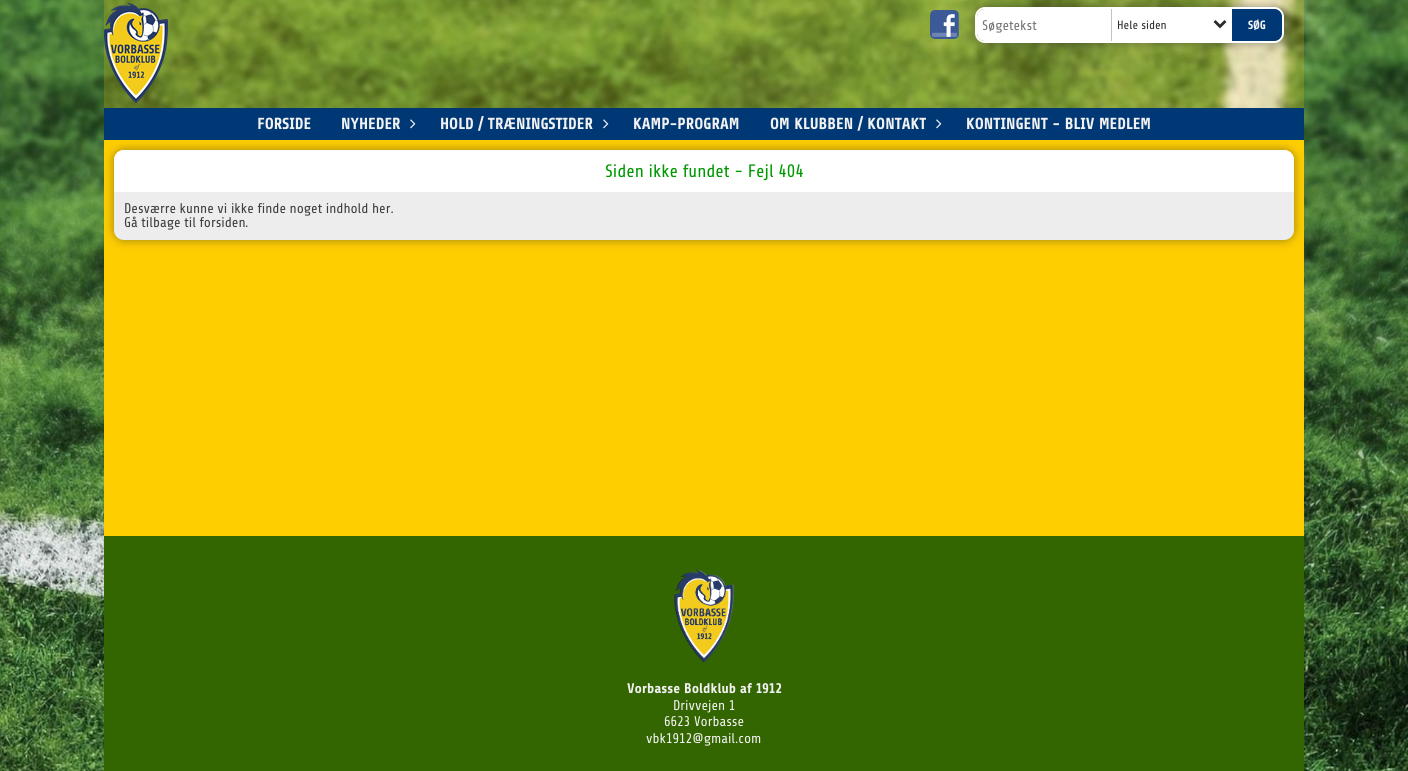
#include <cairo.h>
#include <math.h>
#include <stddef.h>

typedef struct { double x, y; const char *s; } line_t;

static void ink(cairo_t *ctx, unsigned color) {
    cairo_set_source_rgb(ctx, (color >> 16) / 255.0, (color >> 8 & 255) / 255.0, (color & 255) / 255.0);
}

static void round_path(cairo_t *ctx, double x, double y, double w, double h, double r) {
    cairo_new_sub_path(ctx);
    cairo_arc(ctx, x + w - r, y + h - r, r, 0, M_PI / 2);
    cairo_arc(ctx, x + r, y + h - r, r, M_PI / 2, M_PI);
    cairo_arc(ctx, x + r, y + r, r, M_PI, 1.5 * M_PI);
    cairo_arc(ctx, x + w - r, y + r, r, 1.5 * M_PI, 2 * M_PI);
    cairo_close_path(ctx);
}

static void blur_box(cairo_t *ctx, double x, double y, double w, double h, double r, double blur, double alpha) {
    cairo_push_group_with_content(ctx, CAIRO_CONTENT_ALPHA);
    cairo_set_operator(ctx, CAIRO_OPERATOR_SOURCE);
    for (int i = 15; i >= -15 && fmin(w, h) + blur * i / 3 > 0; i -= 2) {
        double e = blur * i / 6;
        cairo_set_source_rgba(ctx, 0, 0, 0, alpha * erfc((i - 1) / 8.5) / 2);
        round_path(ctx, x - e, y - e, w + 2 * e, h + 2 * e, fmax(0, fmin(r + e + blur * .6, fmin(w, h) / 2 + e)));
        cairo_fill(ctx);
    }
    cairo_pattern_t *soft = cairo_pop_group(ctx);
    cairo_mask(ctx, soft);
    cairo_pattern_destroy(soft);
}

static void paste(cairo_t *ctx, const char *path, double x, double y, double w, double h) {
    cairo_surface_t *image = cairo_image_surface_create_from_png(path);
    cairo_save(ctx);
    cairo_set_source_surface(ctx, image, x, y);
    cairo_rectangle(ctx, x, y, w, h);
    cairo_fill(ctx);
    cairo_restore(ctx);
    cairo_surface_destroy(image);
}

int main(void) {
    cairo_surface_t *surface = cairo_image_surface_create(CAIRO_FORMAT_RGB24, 1408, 771);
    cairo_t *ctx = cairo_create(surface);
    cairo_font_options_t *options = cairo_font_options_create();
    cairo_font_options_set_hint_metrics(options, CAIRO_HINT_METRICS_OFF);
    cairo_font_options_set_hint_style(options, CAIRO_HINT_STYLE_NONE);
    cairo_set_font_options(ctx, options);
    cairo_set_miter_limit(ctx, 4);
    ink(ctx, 0xFFFFFF);
    cairo_paint(ctx);
    paste(ctx, "media/1.png", 0, 0, 1408, 771);
    cairo_set_source_rgba(ctx, 1, 0.8, 0, 0.2);
    cairo_rectangle(ctx, 104, 0, 1200, 108);
    cairo_fill(ctx);
    paste(ctx, "media/2.png", 104, 3, 64, 100);
    paste(ctx, "media/3.png", 930, 10, 29, 29);
    ink(ctx, 0x303030);
    blur_box(ctx, 975, 7, 309, 36, 10, 5, 0.5);
    round_path(ctx, 976, 8, 307, 34, 9);
    ink(ctx, 0xFFFFFF);
    cairo_stroke(ctx);
    cairo_new_path(ctx);
    cairo_move_to(ctx, 985, 9);
    cairo_line_to(ctx, 1115, 9);
    cairo_line_to(ctx, 1115, 41);
    cairo_line_to(ctx, 985, 41);
    cairo_curve_to(ctx, 980.5, 41, 977, 37.5, 977, 33);
    cairo_line_to(ctx, 977, 17);
    cairo_curve_to(ctx, 977, 12.5, 980.5, 9, 985, 9);
    cairo_close_path(ctx);
    cairo_fill(ctx);
    cairo_select_font_face(ctx, "Share", CAIRO_FONT_SLANT_NORMAL, CAIRO_FONT_WEIGHT_NORMAL);
    cairo_set_font_size(ctx, 14);
    ink(ctx, 0x757575);
    cairo_move_to(ctx, 982, 30);
    cairo_show_text(ctx, "Søgetekst");
    ink(ctx, 0xFFFFFF);
    cairo_rectangle(ctx, 1115, 9, 117, 32);
    cairo_fill(ctx);
    ink(ctx, 0xC2C2C2);
    cairo_rectangle(ctx, 1111, 9, 1, 32);
    cairo_fill(ctx);
    cairo_set_font_size(ctx, 12);
    ink(ctx, 0x2C2C2C);
    cairo_move_to(ctx, 1117, 29);
    cairo_show_text(ctx, "Hele siden");
    paste(ctx, "media/4.png", 1213, 20, 14, 9);
    ink(ctx, 0x003876);
    cairo_new_path(ctx);
    cairo_move_to(ctx, 1232, 9);
    cairo_line_to(ctx, 1274, 9);
    cairo_curve_to(ctx, 1278.5, 9, 1282, 12.5, 1282, 17);
    cairo_line_to(ctx, 1282, 33);
    cairo_curve_to(ctx, 1282, 37.5, 1278.5, 41, 1274, 41);
    cairo_line_to(ctx, 1232, 41);
    cairo_close_path(ctx);
    cairo_fill(ctx);
    cairo_select_font_face(ctx, "Share", CAIRO_FONT_SLANT_NORMAL, CAIRO_FONT_WEIGHT_BOLD);
    ink(ctx, 0xF1F1F1);
    cairo_move_to(ctx, 1248, 29);
    cairo_show_text(ctx, "SØG");
    ink(ctx, 0x003876);
    cairo_rectangle(ctx, 104, 108, 1200, 32);
    cairo_fill(ctx);
    cairo_set_font_size(ctx, 16);
    ink(ctx, 0xF1F1F1);
    cairo_move_to(ctx, 257, 129);
    cairo_show_text(ctx, "FORSIDE");
    cairo_move_to(ctx, 341, 129);
    cairo_show_text(ctx, "NYHEDER");
    paste(ctx, "media/5.png", 410, 119, 6, 10);
    cairo_move_to(ctx, 440, 129);
    cairo_show_text(ctx, "HOLD / TRÆNINGSTIDER");
    paste(ctx, "media/5.png", 603, 119, 6, 10);
    cairo_move_to(ctx, 633, 129);
    cairo_show_text(ctx, "KAMP-PROGRAM");
    cairo_move_to(ctx, 770, 129);
    cairo_show_text(ctx, "OM KLUBBEN / KONTAKT");
    paste(ctx, "media/5.png", 936, 119, 6, 10);
    cairo_move_to(ctx, 966, 129);
    cairo_show_text(ctx, "KONTINGENT - BLIV MEDLEM");
    ink(ctx, 0xFFCE00);
    cairo_rectangle(ctx, 104, 140, 1200, 396);
    cairo_fill(ctx);
    ink(ctx, 0x303030);
    blur_box(ctx, 114, 150, 1180, 90, 10, 5, 0.5);
    ink(ctx, 0xEDEDED);
    round_path(ctx, 114, 150, 1180, 90, 10);
    cairo_fill(ctx);
    ink(ctx, 0xFFFFFF);
    cairo_new_path(ctx);
    cairo_move_to(ctx, 124, 150);
    cairo_line_to(ctx, 1284, 150);
    cairo_curve_to(ctx, 1289.5, 150, 1294, 154.5, 1294, 160);
    cairo_line_to(ctx, 1294, 192);
    cairo_line_to(ctx, 114, 192);
    cairo_line_to(ctx, 114, 160);
    cairo_curve_to(ctx, 114, 154.5, 118.5, 150, 124, 150);
    cairo_close_path(ctx);
    cairo_fill(ctx);
    cairo_select_font_face(ctx, "Share", CAIRO_FONT_SLANT_NORMAL, CAIRO_FONT_WEIGHT_NORMAL);
    cairo_set_font_size(ctx, 18);
    ink(ctx, 0x009900);
    cairo_move_to(ctx, 605, 177);
    cairo_show_text(ctx, "Siden ikke fundet - Fejl 404");
    cairo_set_font_size(ctx, 14);
    ink(ctx, 0x3F3F3F);
    {
        static const line_t items[] = {
            {124, 213, "Desværre kunne vi ikke finde noget indhold her."},
            {124, 227, "Gå tilbage til forsiden"},
            {245, 227, "."},
        };
        for (size_t i = 0; i < sizeof items / sizeof *items; i++) {
            cairo_move_to(ctx, items[i].x, items[i].y);
            cairo_show_text(ctx, items[i].s);
        }
    }
    ink(ctx, 0x336600);
    cairo_rectangle(ctx, 104, 536, 1200, 235);
    cairo_fill(ctx);
    paste(ctx, "media/6.png", 674, 569, 60, 94);
    cairo_select_font_face(ctx, "Share", CAIRO_FONT_SLANT_NORMAL, CAIRO_FONT_WEIGHT_BOLD);
    ink(ctx, 0xF1F1F1);
    cairo_move_to(ctx, 627, 693);
    cairo_show_text(ctx, "Vorbasse Boldklub af 1912");
    cairo_select_font_face(ctx, "Share", CAIRO_FONT_SLANT_NORMAL, CAIRO_FONT_WEIGHT_NORMAL);
    {
        static const line_t items[] = {
            {673, 710, "Drivvejen 1"},
            {664, 726, "6623 Vorbasse"},
            {646, 743, "vbk1912@gmail.com"},
        };
        for (size_t i = 0; i < sizeof items / sizeof *items; i++) {
            cairo_move_to(ctx, items[i].x, items[i].y);
            cairo_show_text(ctx, items[i].s);
        }
    }
    cairo_surface_write_to_png(surface, "image.png");
    cairo_font_options_destroy(options);
    cairo_destroy(ctx);
    cairo_surface_destroy(surface);
    return 0;
}
